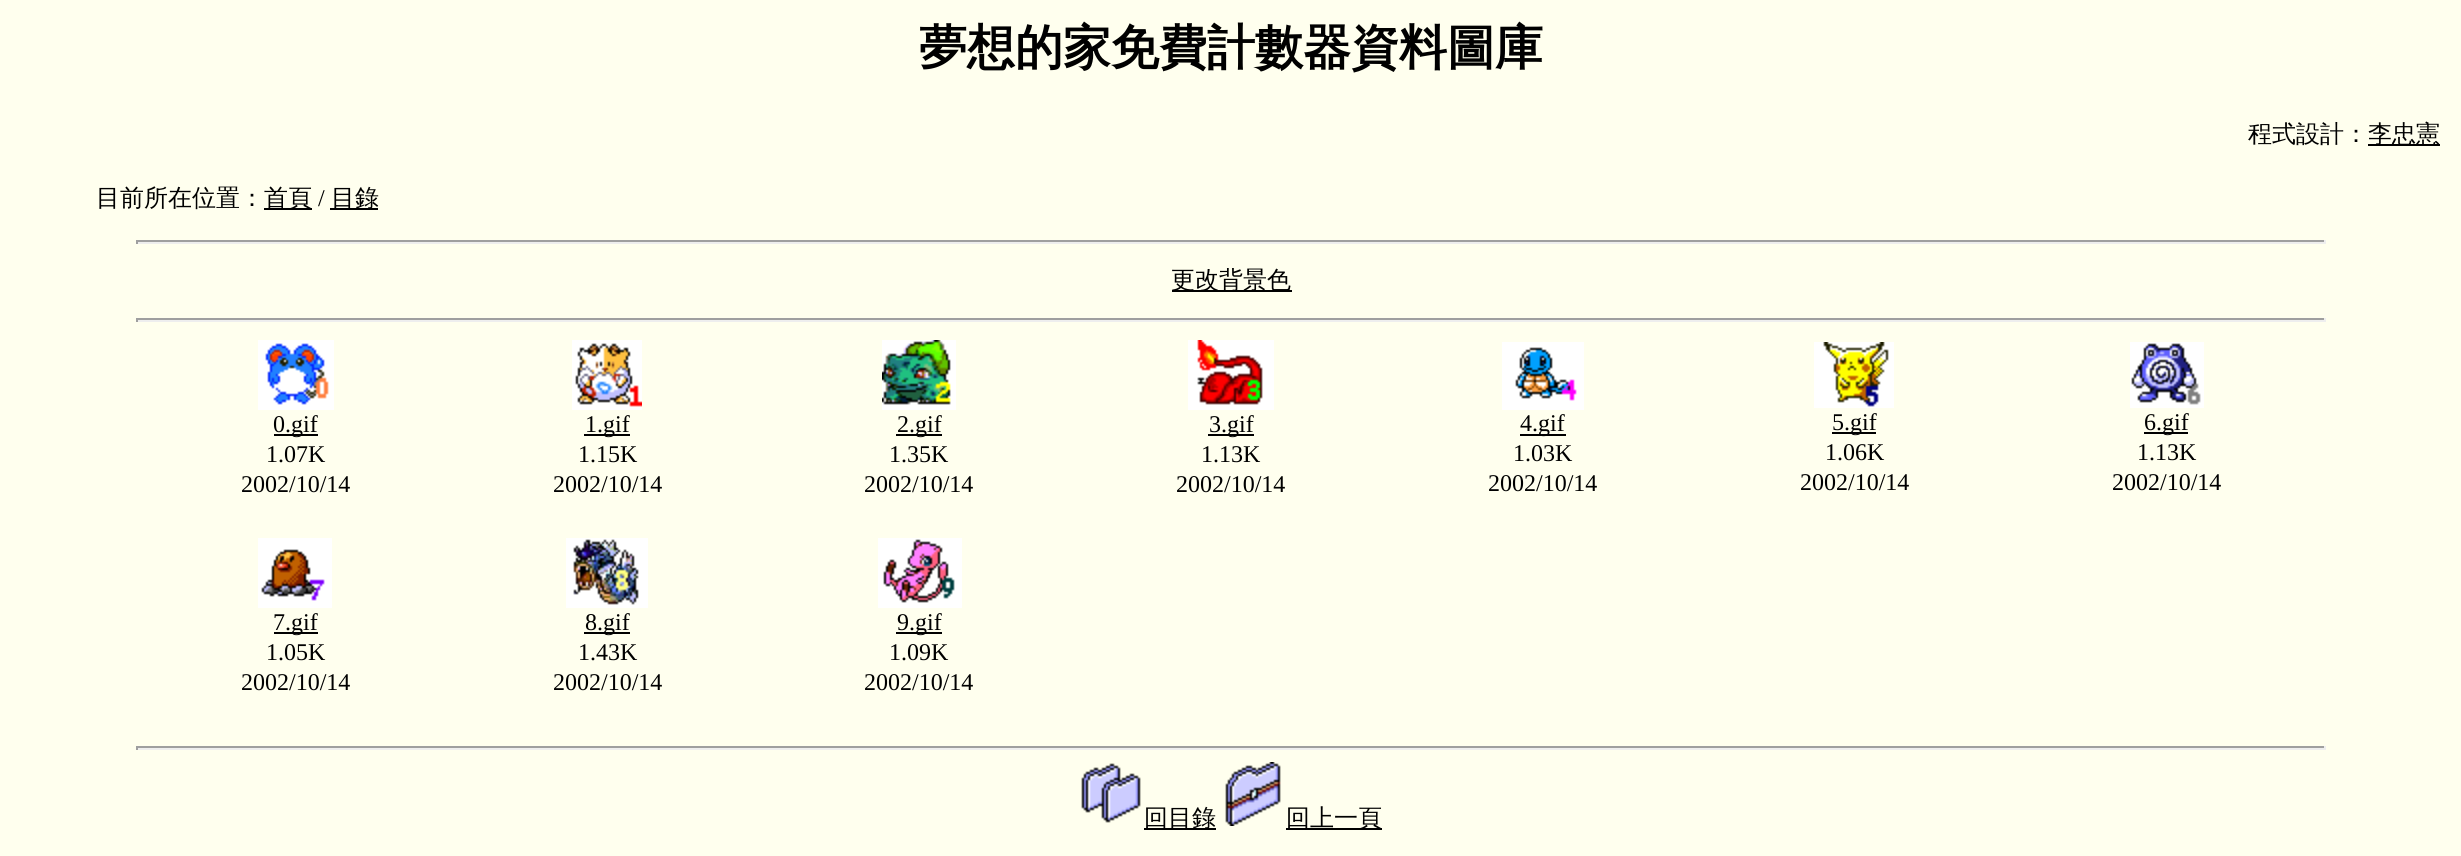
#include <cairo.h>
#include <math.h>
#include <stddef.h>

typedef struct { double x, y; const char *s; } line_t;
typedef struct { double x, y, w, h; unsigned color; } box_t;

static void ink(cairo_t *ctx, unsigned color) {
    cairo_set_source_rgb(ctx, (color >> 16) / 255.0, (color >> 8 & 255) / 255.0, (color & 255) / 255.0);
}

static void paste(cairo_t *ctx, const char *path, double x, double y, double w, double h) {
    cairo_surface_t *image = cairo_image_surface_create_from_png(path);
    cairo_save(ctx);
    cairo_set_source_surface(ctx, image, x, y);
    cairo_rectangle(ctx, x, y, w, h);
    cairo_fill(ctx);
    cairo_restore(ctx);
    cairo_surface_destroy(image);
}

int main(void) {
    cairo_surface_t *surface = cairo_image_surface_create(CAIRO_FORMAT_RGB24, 2461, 856);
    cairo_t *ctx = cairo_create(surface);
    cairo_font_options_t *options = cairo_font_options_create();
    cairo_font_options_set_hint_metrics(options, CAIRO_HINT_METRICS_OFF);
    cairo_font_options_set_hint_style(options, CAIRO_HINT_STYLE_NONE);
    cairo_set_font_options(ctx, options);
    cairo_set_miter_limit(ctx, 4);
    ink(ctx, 0xFFFFEE);
    cairo_paint(ctx);
    cairo_select_font_face(ctx, "WenQuanYi Zen Hei", CAIRO_FONT_SLANT_NORMAL, CAIRO_FONT_WEIGHT_BOLD);
    cairo_set_font_size(ctx, 48);
    ink(ctx, 0x000000);
    cairo_move_to(ctx, 919, 64);
    cairo_show_text(ctx, "夢想的家免費計數器資料圖庫");
    cairo_select_font_face(ctx, "WenQuanYi Zen Hei Medium", CAIRO_FONT_SLANT_NORMAL, CAIRO_FONT_WEIGHT_NORMAL);
    cairo_set_font_size(ctx, 24);
    cairo_move_to(ctx, 2248, 142);
    cairo_show_text(ctx, "程式設計：");
    cairo_rectangle(ctx, 2368, 144, 72, 2);
    cairo_fill(ctx);
    cairo_move_to(ctx, 2368, 142);
    cairo_show_text(ctx, "李忠憲");
    cairo_move_to(ctx, 96, 206);
    cairo_show_text(ctx, "目前所在位置：");
    cairo_rectangle(ctx, 264, 208, 48, 2);
    cairo_fill(ctx);
    cairo_move_to(ctx, 264, 206);
    cairo_show_text(ctx, "首頁");
    cairo_select_font_face(ctx, "Liberation Serif", CAIRO_FONT_SLANT_NORMAL, CAIRO_FONT_WEIGHT_NORMAL);
    cairo_move_to(ctx, 318, 206);
    cairo_show_text(ctx, "/");
    cairo_rectangle(ctx, 330, 208, 48, 2);
    cairo_fill(ctx);
    cairo_select_font_face(ctx, "WenQuanYi Zen Hei Medium", CAIRO_FONT_SLANT_NORMAL, CAIRO_FONT_WEIGHT_NORMAL);
    cairo_move_to(ctx, 331, 206);
    cairo_show_text(ctx, "目錄");
    {
        static const box_t items[] = {
            {136, 240, 2190, 2, 0x9F9F9F},
            {2324, 240, 2, 4, 0xEEEEEE},
            {136, 242, 2190, 2, 0xEEEEEE},
            {136, 240, 2, 4, 0x9F9F9F},
            {1172, 290, 120, 2, 0x000000},
        };
        for (size_t i = 0; i < sizeof items / sizeof *items; i++) {
            ink(ctx, items[i].color);
            cairo_rectangle(ctx, items[i].x, items[i].y, items[i].w, items[i].h);
            cairo_fill(ctx);
        }
    }
    cairo_move_to(ctx, 1171, 288);
    cairo_show_text(ctx, "更改背景色");
    {
        static const box_t items[] = {
            {136, 318, 2190, 2, 0x9F9F9F},
            {2324, 318, 2, 4, 0xEEEEEE},
            {136, 320, 2190, 2, 0xEEEEEE},
            {136, 318, 2, 4, 0x9F9F9F},
        };
        for (size_t i = 0; i < sizeof items / sizeof *items; i++) {
            ink(ctx, items[i].color);
            cairo_rectangle(ctx, items[i].x, items[i].y, items[i].w, items[i].h);
            cairo_fill(ctx);
        }
    }
    paste(ctx, "media/1.png", 258, 340, 76, 70);
    ink(ctx, 0x000000);
    cairo_rectangle(ctx, 274, 434, 44, 2);
    cairo_fill(ctx);
    cairo_select_font_face(ctx, "Liberation Serif", CAIRO_FONT_SLANT_NORMAL, CAIRO_FONT_WEIGHT_NORMAL);
    {
        static const line_t items[] = {
            {273, 432, "0.gif"},
            {266, 462, "1.07K"},
            {241, 492, "2002/10/14"},
        };
        for (size_t i = 0; i < sizeof items / sizeof *items; i++) {
            cairo_move_to(ctx, items[i].x, items[i].y);
            cairo_show_text(ctx, items[i].s);
        }
    }
    paste(ctx, "media/2.png", 572, 340, 70, 70);
    cairo_rectangle(ctx, 584, 434, 46, 2);
    cairo_fill(ctx);
    {
        static const line_t items[] = {
            {585, 432, "1.gif"},
            {578, 462, "1.15K"},
            {553, 492, "2002/10/14"},
        };
        for (size_t i = 0; i < sizeof items / sizeof *items; i++) {
            cairo_move_to(ctx, items[i].x, items[i].y);
            cairo_show_text(ctx, items[i].s);
        }
    }
    paste(ctx, "media/3.png", 882, 340, 74, 70);
    cairo_rectangle(ctx, 896, 434, 46, 2);
    cairo_fill(ctx);
    {
        static const line_t items[] = {
            {897, 432, "2.gif"},
            {889, 462, "1.35K"},
            {864, 492, "2002/10/14"},
        };
        for (size_t i = 0; i < sizeof items / sizeof *items; i++) {
            cairo_move_to(ctx, items[i].x, items[i].y);
            cairo_show_text(ctx, items[i].s);
        }
    }
    paste(ctx, "media/4.png", 1188, 340, 86, 70);
    cairo_rectangle(ctx, 1208, 434, 46, 2);
    cairo_fill(ctx);
    {
        static const line_t items[] = {
            {1209, 432, "3.gif"},
            {1201, 462, "1.13K"},
            {1176, 492, "2002/10/14"},
        };
        for (size_t i = 0; i < sizeof items / sizeof *items; i++) {
            cairo_move_to(ctx, items[i].x, items[i].y);
            cairo_show_text(ctx, items[i].s);
        }
    }
    paste(ctx, "media/5.png", 1502, 342, 82, 68);
    cairo_rectangle(ctx, 1520, 434, 46, 2);
    cairo_fill(ctx);
    {
        static const line_t items[] = {
            {1520, 431, "4.gif"},
            {1513, 461, "1.03K"},
            {1488, 491, "2002/10/14"},
        };
        for (size_t i = 0; i < sizeof items / sizeof *items; i++) {
            cairo_move_to(ctx, items[i].x, items[i].y);
            cairo_show_text(ctx, items[i].s);
        }
    }
    paste(ctx, "media/6.png", 1814, 342, 80, 66);
    cairo_rectangle(ctx, 1832, 432, 44, 2);
    cairo_fill(ctx);
    {
        static const line_t items[] = {
            {1832, 430, "5.gif"},
            {1825, 460, "1.06K"},
            {1800, 490, "2002/10/14"},
        };
        for (size_t i = 0; i < sizeof items / sizeof *items; i++) {
            cairo_move_to(ctx, items[i].x, items[i].y);
            cairo_show_text(ctx, items[i].s);
        }
    }
    paste(ctx, "media/7.png", 2130, 342, 74, 66);
    cairo_rectangle(ctx, 2144, 432, 44, 2);
    cairo_fill(ctx);
    {
        static const line_t items[] = {
            {2144, 430, "6.gif"},
            {2137, 460, "1.13K"},
            {2112, 490, "2002/10/14"},
        };
        for (size_t i = 0; i < sizeof items / sizeof *items; i++) {
            cairo_move_to(ctx, items[i].x, items[i].y);
            cairo_show_text(ctx, items[i].s);
        }
    }
    paste(ctx, "media/8.png", 258, 538, 74, 70);
    cairo_rectangle(ctx, 274, 632, 44, 2);
    cairo_fill(ctx);
    {
        static const line_t items[] = {
            {273, 630, "7.gif"},
            {266, 660, "1.05K"},
            {241, 690, "2002/10/14"},
        };
        for (size_t i = 0; i < sizeof items / sizeof *items; i++) {
            cairo_move_to(ctx, items[i].x, items[i].y);
            cairo_show_text(ctx, items[i].s);
        }
    }
    paste(ctx, "media/9.png", 566, 538, 82, 70);
    cairo_rectangle(ctx, 584, 632, 46, 2);
    cairo_fill(ctx);
    {
        static const line_t items[] = {
            {585, 630, "8.gif"},
            {578, 660, "1.43K"},
            {553, 690, "2002/10/14"},
        };
        for (size_t i = 0; i < sizeof items / sizeof *items; i++) {
            cairo_move_to(ctx, items[i].x, items[i].y);
            cairo_show_text(ctx, items[i].s);
        }
    }
    paste(ctx, "media/10.png", 878, 538, 84, 70);
    cairo_rectangle(ctx, 896, 632, 46, 2);
    cairo_fill(ctx);
    {
        static const line_t items[] = {
            {897, 630, "9.gif"},
            {889, 660, "1.09K"},
            {864, 690, "2002/10/14"},
        };
        for (size_t i = 0; i < sizeof items / sizeof *items; i++) {
            cairo_move_to(ctx, items[i].x, items[i].y);
            cairo_show_text(ctx, items[i].s);
        }
    }
    {
        static const box_t items[] = {
            {136, 746, 2190, 2, 0x9F9F9F},
            {2324, 746, 2, 4, 0xEEEEEE},
            {136, 748, 2190, 2, 0xEEEEEE},
            {136, 746, 2, 4, 0x9F9F9F},
        };
        for (size_t i = 0; i < sizeof items / sizeof *items; i++) {
            ink(ctx, items[i].color);
            cairo_rectangle(ctx, items[i].x, items[i].y, items[i].w, items[i].h);
            cairo_fill(ctx);
        }
    }
    paste(ctx, "media/11.png", 1081, 763, 60, 60);
    ink(ctx, 0x000000);
    cairo_rectangle(ctx, 1144, 828, 72, 2);
    cairo_fill(ctx);
    cairo_select_font_face(ctx, "WenQuanYi Zen Hei Medium", CAIRO_FONT_SLANT_NORMAL, CAIRO_FONT_WEIGHT_NORMAL);
    cairo_move_to(ctx, 1144, 826);
    cairo_show_text(ctx, "回目錄");
    paste(ctx, "media/12.png", 1225, 762, 56, 64);
    cairo_rectangle(ctx, 1286, 828, 96, 2);
    cairo_fill(ctx);
    cairo_move_to(ctx, 1286, 826);
    cairo_show_text(ctx, "回上一頁");
    cairo_surface_write_to_png(surface, "image.png");
    cairo_font_options_destroy(options);
    cairo_destroy(ctx);
    cairo_surface_destroy(surface);
    return 0;
}
